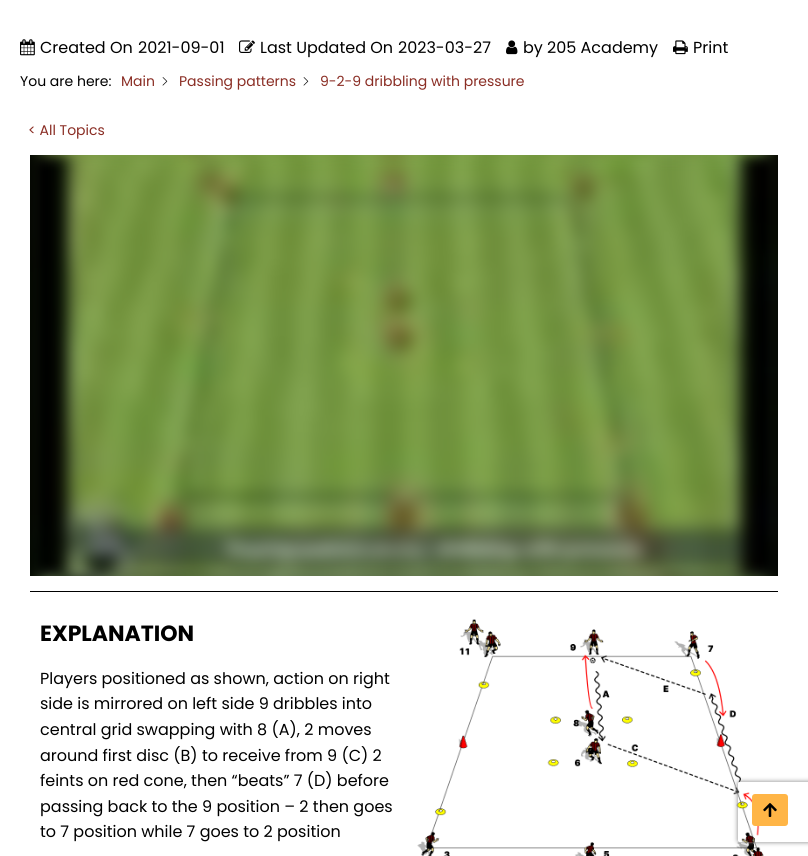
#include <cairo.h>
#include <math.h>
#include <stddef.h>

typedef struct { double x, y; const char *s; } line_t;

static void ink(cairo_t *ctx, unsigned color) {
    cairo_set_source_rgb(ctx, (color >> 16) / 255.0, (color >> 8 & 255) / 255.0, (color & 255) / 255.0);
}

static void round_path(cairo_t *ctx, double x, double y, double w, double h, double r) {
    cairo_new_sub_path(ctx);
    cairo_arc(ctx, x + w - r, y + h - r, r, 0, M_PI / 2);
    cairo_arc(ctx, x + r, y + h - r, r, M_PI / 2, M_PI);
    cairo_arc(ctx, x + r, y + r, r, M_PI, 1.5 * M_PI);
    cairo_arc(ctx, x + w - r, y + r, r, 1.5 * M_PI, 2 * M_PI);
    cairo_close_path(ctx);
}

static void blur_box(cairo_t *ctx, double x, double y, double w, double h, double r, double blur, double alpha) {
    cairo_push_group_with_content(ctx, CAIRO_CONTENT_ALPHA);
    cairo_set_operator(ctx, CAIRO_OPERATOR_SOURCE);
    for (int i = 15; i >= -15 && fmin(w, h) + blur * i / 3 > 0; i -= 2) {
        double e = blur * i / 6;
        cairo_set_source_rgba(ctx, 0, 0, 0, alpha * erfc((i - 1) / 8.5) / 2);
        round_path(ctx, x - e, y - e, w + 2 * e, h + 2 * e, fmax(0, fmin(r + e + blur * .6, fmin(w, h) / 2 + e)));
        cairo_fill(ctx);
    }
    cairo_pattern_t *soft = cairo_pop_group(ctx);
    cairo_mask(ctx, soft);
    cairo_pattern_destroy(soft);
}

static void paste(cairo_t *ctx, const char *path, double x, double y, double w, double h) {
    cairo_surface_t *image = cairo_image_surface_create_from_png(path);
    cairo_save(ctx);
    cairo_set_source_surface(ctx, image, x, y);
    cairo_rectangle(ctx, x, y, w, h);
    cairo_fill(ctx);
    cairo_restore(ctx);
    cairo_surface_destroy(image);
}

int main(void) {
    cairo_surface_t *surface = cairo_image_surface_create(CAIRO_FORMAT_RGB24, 808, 856);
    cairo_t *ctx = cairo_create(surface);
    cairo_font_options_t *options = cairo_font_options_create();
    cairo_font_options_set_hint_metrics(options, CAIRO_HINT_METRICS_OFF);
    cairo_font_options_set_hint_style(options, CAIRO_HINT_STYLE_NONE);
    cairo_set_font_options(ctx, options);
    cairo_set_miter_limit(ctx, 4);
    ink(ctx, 0xFFFFFF);
    cairo_paint(ctx);
    paste(ctx, "media/1.png", 20, 39, 15, 17);
    cairo_select_font_face(ctx, "Poppins", CAIRO_FONT_SLANT_NORMAL, CAIRO_FONT_WEIGHT_NORMAL);
    cairo_set_font_size(ctx, 16);
    ink(ctx, 0x000000);
    cairo_move_to(ctx, 40, 53);
    cairo_show_text(ctx, "Created On");
    cairo_move_to(ctx, 138, 53);
    cairo_show_text(ctx, "2021-09-01");
    paste(ctx, "media/2.png", 239, 40, 16, 13);
    cairo_move_to(ctx, 260, 53);
    cairo_show_text(ctx, "Last Updated On");
    cairo_move_to(ctx, 398, 53);
    cairo_show_text(ctx, "2023-03-27");
    paste(ctx, "media/3.png", 506, 40, 12, 15);
    cairo_move_to(ctx, 523, 53);
    cairo_show_text(ctx, "by");
    cairo_move_to(ctx, 547, 53);
    cairo_show_text(ctx, "205 Academy");
    paste(ctx, "media/4.png", 673, 40, 15, 15);
    cairo_move_to(ctx, 693, 53);
    cairo_show_text(ctx, "Print");
    cairo_set_font_size(ctx, 14);
    cairo_move_to(ctx, 20, 86);
    cairo_show_text(ctx, "You are here:");
    ink(ctx, 0x8A2D24);
    cairo_move_to(ctx, 121, 86);
    cairo_show_text(ctx, "Main");
    paste(ctx, "media/5.png", 162, 77, 6, 9);
    cairo_move_to(ctx, 179, 86);
    cairo_show_text(ctx, "Passing patterns");
    paste(ctx, "media/5.png", 303, 77, 6, 9);
    cairo_move_to(ctx, 320, 86);
    cairo_show_text(ctx, "9-2-9 dribbling with pressure");
    cairo_move_to(ctx, 28, 135);
    cairo_show_text(ctx, "< All Topics");
    paste(ctx, "media/6.png", 30, 155, 748, 421);
    ink(ctx, 0x000000);
    cairo_rectangle(ctx, 30, 591, 748, 1);
    cairo_fill(ctx);
    cairo_select_font_face(ctx, "Poppins", CAIRO_FONT_SLANT_NORMAL, CAIRO_FONT_WEIGHT_BOLD);
    cairo_set_font_size(ctx, 22);
    cairo_move_to(ctx, 40, 641);
    cairo_show_text(ctx, "EXPLANATION");
    cairo_select_font_face(ctx, "Poppins", CAIRO_FONT_SLANT_NORMAL, CAIRO_FONT_WEIGHT_NORMAL);
    cairo_set_font_size(ctx, 16);
    {
        static const line_t items[] = {
            {40, 684, "Players positioned as shown, action on right"},
            {40, 709, "side is mirrored on left side 9 dribbles into"},
            {40, 735, "central grid swapping with 8 (A), 2 moves"},
            {40, 761, "around first disc (B) to receive from 9 (C) 2"},
            {40, 786, "feints on red cone, then “beats” 7 (D) before"},
            {40, 812, "passing back to the 9 position – 2 then goes"},
            {40, 837, "to 7 position while 7 goes to 2 position"},
        };
        for (size_t i = 0; i < sizeof items / sizeof *items; i++) {
            cairo_move_to(ctx, items[i].x, items[i].y);
            cairo_show_text(ctx, items[i].s);
        }
    }
    paste(ctx, "media/7.png", 417, 619, 347, 237);
    cairo_save(ctx);
    cairo_set_fill_rule(ctx, CAIRO_FILL_RULE_EVEN_ODD);
    cairo_new_path(ctx);
    cairo_move_to(ctx, 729, 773);
    cairo_line_to(ctx, 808, 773);
    cairo_line_to(ctx, 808, 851);
    cairo_line_to(ctx, 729, 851);
    cairo_close_path(ctx);
    cairo_move_to(ctx, 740, 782);
    cairo_line_to(ctx, 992, 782);
    cairo_curve_to(ctx, 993, 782, 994, 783, 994, 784);
    cairo_line_to(ctx, 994, 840);
    cairo_curve_to(ctx, 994, 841, 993, 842, 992, 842);
    cairo_line_to(ctx, 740, 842);
    cairo_curve_to(ctx, 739, 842, 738, 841, 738, 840);
    cairo_line_to(ctx, 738, 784);
    cairo_curve_to(ctx, 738, 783, 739, 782, 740, 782);
    cairo_close_path(ctx);
    cairo_clip(ctx);
    ink(ctx, 0x808080);
    blur_box(ctx, 738, 782, 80, 60, 2, 2.5, 1);
    cairo_restore(ctx);
    ink(ctx, 0xFFB546);
    round_path(ctx, 752, 794, 36, 32, 3);
    cairo_fill(ctx);
    paste(ctx, "media/8.png", 763, 803, 14, 14);
    cairo_surface_write_to_png(surface, "image.png");
    cairo_font_options_destroy(options);
    cairo_destroy(ctx);
    cairo_surface_destroy(surface);
    return 0;
}
